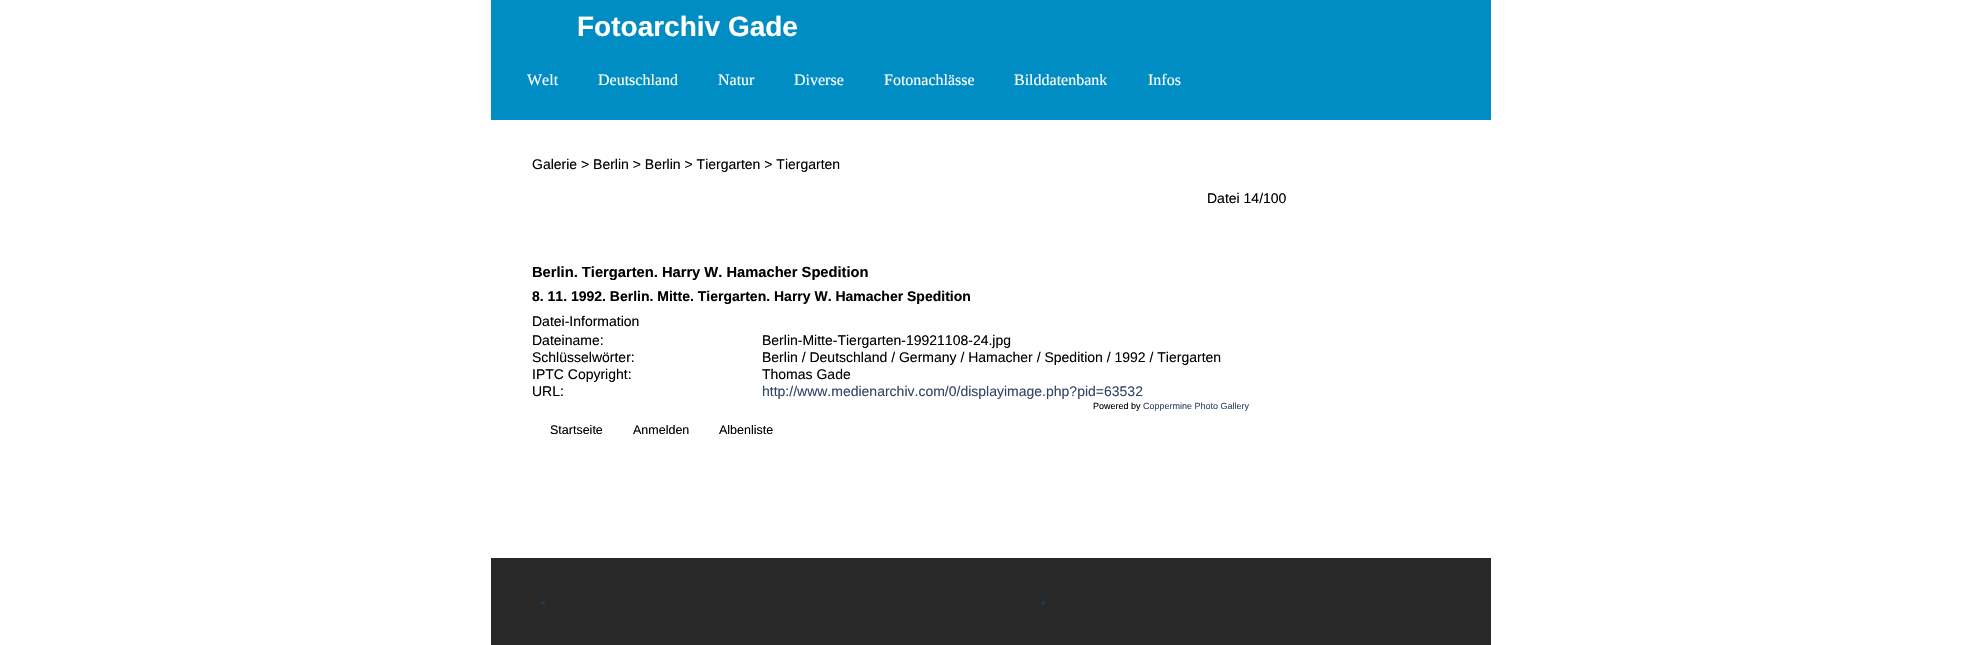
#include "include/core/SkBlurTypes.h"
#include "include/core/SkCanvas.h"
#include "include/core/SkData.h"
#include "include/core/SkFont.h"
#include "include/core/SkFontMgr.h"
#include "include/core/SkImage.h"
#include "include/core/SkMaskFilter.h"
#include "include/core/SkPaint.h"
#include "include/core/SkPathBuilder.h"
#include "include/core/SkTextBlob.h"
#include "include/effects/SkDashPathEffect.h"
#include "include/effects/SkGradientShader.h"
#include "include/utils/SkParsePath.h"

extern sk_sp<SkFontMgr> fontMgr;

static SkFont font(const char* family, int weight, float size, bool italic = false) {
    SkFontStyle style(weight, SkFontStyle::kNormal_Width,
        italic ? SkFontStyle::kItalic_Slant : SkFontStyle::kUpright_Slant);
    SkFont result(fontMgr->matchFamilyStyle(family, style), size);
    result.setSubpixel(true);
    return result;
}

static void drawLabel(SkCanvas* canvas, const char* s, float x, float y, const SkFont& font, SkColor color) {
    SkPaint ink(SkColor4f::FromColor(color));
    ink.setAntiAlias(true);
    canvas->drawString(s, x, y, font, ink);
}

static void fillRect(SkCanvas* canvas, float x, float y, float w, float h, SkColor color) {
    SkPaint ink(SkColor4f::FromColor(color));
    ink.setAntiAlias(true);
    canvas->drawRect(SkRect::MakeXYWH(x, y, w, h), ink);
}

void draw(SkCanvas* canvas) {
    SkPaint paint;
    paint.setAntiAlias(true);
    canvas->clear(0xFFFFFFFF);
    fillRect(canvas, 491, 0, 1000, 120, 0xFF008DC4);
    SkFont font1 = font("Liberation Sans", 700, 28);
    drawLabel(canvas, "Fotoarchiv Gade", 577, 36, font1, 0xFFFFFFFF);
    SkFont font2 = font("Liberation Serif", 400, 16);
    drawLabel(canvas, "Welt", 527, 85, font2, 0xFFFFFFFF);
    drawLabel(canvas, "Deutschland", 598, 85, font2, 0xFFFFFFFF);
    drawLabel(canvas, "Natur", 718, 85, font2, 0xFFFFFFFF);
    drawLabel(canvas, "Diverse", 794, 85, font2, 0xFFFFFFFF);
    drawLabel(canvas, "Fotonachlässe", 884, 85, font2, 0xFFFFFFFF);
    drawLabel(canvas, "Bilddatenbank", 1014, 85, font2, 0xFFFFFFFF);
    drawLabel(canvas, "Infos", 1148, 85, font2, 0xFFFFFFFF);
    SkFont font3 = font("Liberation Sans", 400, 14);
    drawLabel(canvas, "Galerie > Berlin > Berlin > Tiergarten > Tiergarten", 532, 169, font3, 0xFF000000);
    drawLabel(canvas, "Datei 14/100", 1207, 203, font3, 0xFF000000);
    SkFont font4 = font("Liberation Sans", 700, 14.7f);
    drawLabel(canvas, "Berlin. Tiergarten. Harry W. Hamacher Spedition", 532, 277, font4, 0xFF000000);
    SkFont font5 = font("Liberation Sans", 700, 14);
    drawLabel(canvas, "8. 11. 1992. Berlin. Mitte. Tiergarten. Harry W. Hamacher Spedition", 532, 301, font5, 0xFF000000);
    drawLabel(canvas, "Datei-Information", 532, 326, font3, 0xFF000000);
    drawLabel(canvas, "Dateiname:", 532, 345, font3, 0xFF000000);
    drawLabel(canvas, "Berlin-Mitte-Tiergarten-19921108-24.jpg", 762, 345, font3, 0xFF000000);
    drawLabel(canvas, "Schlüsselwörter:", 532, 362, font3, 0xFF000000);
    drawLabel(canvas, "Berlin / Deutschland / Germany / Hamacher / Spedition / 1992 / Tiergarten", 762, 362, font3, 0xFF000000);
    drawLabel(canvas, "IPTC Copyright:", 532, 379, font3, 0xFF000000);
    drawLabel(canvas, "Thomas Gade", 762, 379, font3, 0xFF000000);
    drawLabel(canvas, "URL:", 532, 396, font3, 0xFF000000);
    drawLabel(canvas, "http://www.medienarchiv.com/0/displayimage.php?pid=63532", 762, 396, font3, 0xFF334466);
    SkFont font6 = font("Liberation Sans", 400, 9);
    drawLabel(canvas, "Powered by", 1093, 409, font6, 0xFF000000);
    drawLabel(canvas, "Coppermine Photo Gallery", 1143, 409, font6, 0xFF334466);
    SkFont font7 = font("Liberation Sans", 400, 12.5f);
    drawLabel(canvas, "Startseite", 550, 434, font7, 0xFF000000);
    drawLabel(canvas, "Anmelden", 633, 434, font7, 0xFF000000);
    drawLabel(canvas, "Albenliste", 719, 434, font7, 0xFF000000);
    fillRect(canvas, 491, 558, 1000, 87, 0xFF292929);
    paint.setColor(0xFF183B53);
    canvas->drawCircle(543, 603, 2, paint);
    canvas->drawCircle(1043, 603, 2, paint);
}
